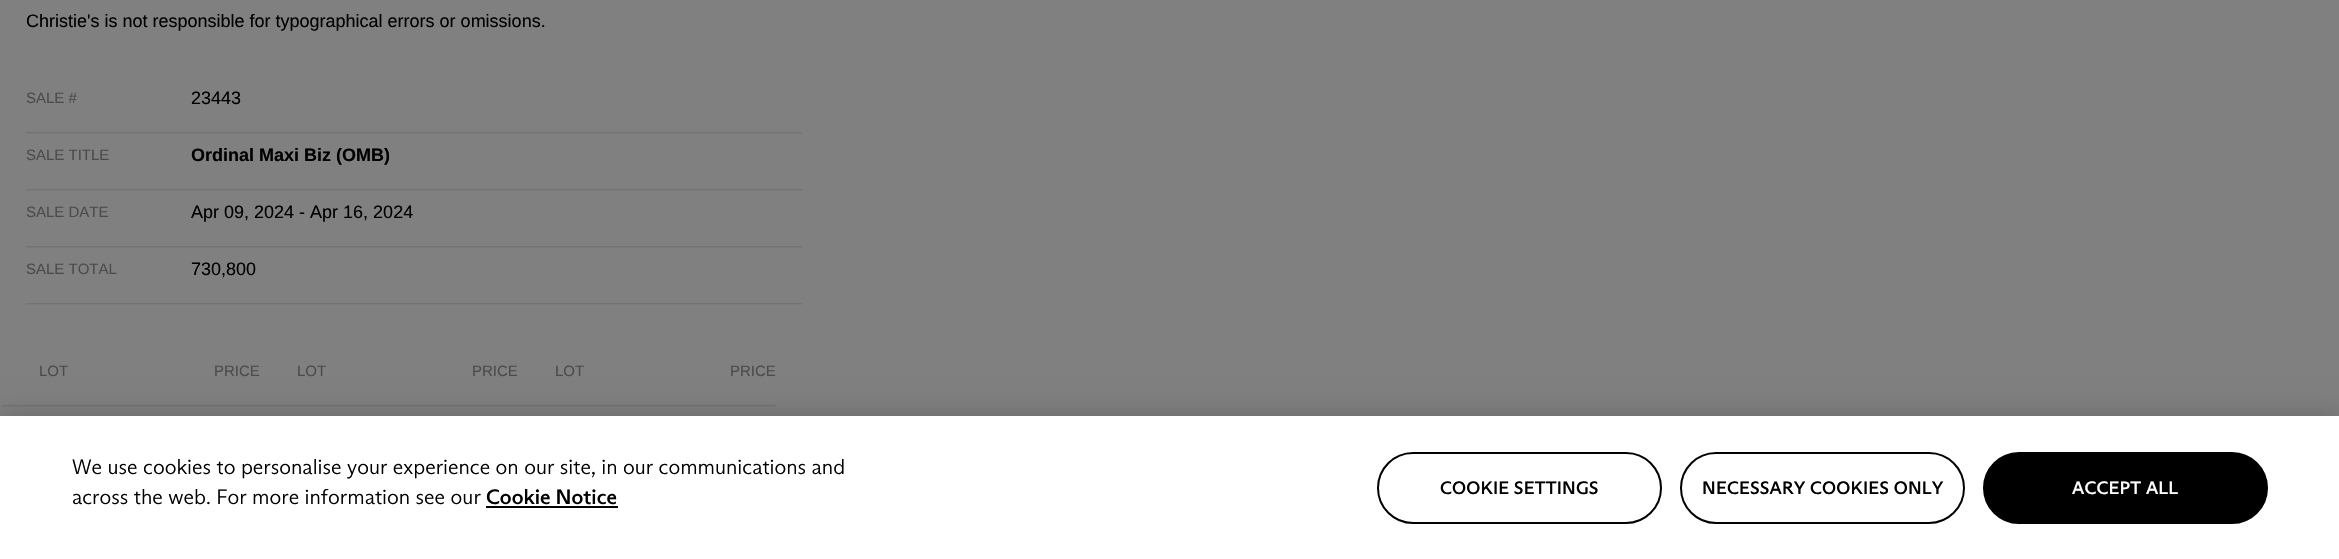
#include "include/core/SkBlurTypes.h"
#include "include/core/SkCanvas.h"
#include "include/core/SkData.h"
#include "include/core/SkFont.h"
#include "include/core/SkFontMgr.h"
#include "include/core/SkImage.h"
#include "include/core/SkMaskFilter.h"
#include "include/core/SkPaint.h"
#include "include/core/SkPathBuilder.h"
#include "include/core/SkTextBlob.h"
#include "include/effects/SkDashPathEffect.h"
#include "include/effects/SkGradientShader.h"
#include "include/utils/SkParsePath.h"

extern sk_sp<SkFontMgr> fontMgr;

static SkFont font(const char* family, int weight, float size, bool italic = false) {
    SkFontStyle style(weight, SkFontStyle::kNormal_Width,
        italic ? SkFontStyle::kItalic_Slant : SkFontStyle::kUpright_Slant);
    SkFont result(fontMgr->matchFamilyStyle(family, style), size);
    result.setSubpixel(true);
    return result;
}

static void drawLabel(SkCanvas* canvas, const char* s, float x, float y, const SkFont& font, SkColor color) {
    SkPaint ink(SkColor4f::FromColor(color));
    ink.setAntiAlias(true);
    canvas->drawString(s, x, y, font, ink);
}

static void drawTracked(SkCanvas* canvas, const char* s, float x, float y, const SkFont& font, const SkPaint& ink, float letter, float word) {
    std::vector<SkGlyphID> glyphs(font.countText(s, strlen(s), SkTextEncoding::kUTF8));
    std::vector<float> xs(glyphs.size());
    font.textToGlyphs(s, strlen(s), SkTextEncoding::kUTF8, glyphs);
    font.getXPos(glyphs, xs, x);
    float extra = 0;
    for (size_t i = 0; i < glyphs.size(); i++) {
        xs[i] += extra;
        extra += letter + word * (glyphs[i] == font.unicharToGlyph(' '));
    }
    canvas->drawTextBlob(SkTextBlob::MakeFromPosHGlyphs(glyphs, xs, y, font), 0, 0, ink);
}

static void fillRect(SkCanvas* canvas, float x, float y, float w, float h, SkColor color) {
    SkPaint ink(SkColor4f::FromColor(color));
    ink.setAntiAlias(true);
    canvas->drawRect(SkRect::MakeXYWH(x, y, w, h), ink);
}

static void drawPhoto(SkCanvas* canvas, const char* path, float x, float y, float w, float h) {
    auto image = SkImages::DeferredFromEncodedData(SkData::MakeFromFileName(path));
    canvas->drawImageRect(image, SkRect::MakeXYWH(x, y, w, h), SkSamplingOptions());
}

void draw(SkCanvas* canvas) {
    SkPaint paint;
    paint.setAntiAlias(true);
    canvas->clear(0xFF808080);
    SkFont font1 = font("Liberation Sans", 400, 18);
    drawLabel(canvas, "Christie's is not responsible for typographical errors or omissions.", 26, 27, font1, 0xFF000000);
    SkFont font2 = font("Liberation Sans", 400, 15);
    drawLabel(canvas, "SALE #", 26, 103, font2, 0xFF4B4B4B);
    drawLabel(canvas, "23443", 191, 104, font1, 0xFF000000);
    drawPhoto(canvas, "assets/img1.png", 25, 132, 778, 2);
    drawLabel(canvas, "SALE TITLE", 26, 160, font2, 0xFF4B4B4B);
    SkFont font3 = font("Liberation Sans", 700, 18);
    drawLabel(canvas, "Ordinal Maxi Biz (OMB)", 191, 161, font3, 0xFF000000);
    drawPhoto(canvas, "assets/img1.png", 25, 189, 778, 2);
    drawLabel(canvas, "SALE DATE", 26, 217, font2, 0xFF4B4B4B);
    drawLabel(canvas, "Apr 09, 2024 - Apr 16, 2024", 191, 218, font1, 0xFF000000);
    drawPhoto(canvas, "assets/img1.png", 25, 246, 778, 2);
    drawLabel(canvas, "SALE TOTAL", 26, 274, font2, 0xFF4B4B4B);
    drawLabel(canvas, "730,800", 191, 275, font1, 0xFF000000);
    drawPhoto(canvas, "assets/img1.png", 25, 303, 778, 2);
    drawLabel(canvas, "LOT", 39, 376, font2, 0xFF4B4B4B);
    drawLabel(canvas, "PRICE", 214, 376, font2, 0xFF4B4B4B);
    drawLabel(canvas, "LOT", 297, 376, font2, 0xFF4B4B4B);
    drawLabel(canvas, "PRICE", 472, 376, font2, 0xFF4B4B4B);
    drawLabel(canvas, "LOT", 555, 376, font2, 0xFF4B4B4B);
    drawLabel(canvas, "PRICE", 730, 376, font2, 0xFF4B4B4B);
    drawPhoto(canvas, "assets/img2.png", 1, 405, 775, 2);
    paint.setColor(0x33000000);
    paint.setMaskFilter(SkMaskFilter::MakeBlur(kNormal_SkBlurStyle, 13.5f));
    canvas->drawRect(SkRect::MakeXYWH(0, 416, 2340, 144), paint);
    paint.setMaskFilter(nullptr);
    fillRect(canvas, 0, 416, 2339, 143, 0xFFFFFFFF);
    SkFont font4 = font("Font", 300, 21);
    drawLabel(canvas, "We use cookies to personalise your experience on our site, in our communications and", 72, 474, font4, 0xFF000000);
    drawLabel(canvas, "across the web. For more information see our", 72, 504, font4, 0xFF000000);
    SkFont font5 = font("Font", 500, 21);
    drawLabel(canvas, "Cookie Notice", 486, 504, font5, 0xFF000000);
    fillRect(canvas, 486, 506, 132, 2, 0xFF000000);
    paint.setStroke(true);
    paint.setStrokeWidth(2);
    paint.setColor(0xFF000000);
    canvas->drawRoundRect(SkRect::MakeXYWH(1378, 453, 283, 70), 35, 35, paint);
    SkFont font6 = font("Font", 500, 18);
    paint.setStroke(false);
    drawTracked(canvas, "COOKIE SETTINGS", 1440, 494, font6, paint, 0.2f, 0);
    paint.setStroke(true);
    canvas->drawRoundRect(SkRect::MakeXYWH(1681, 453, 283, 70), 35, 35, paint);
    paint.setStroke(false);
    drawTracked(canvas, "NECESSARY COOKIES ONLY", 1702, 494, font6, paint, 0.2f, 0);
    canvas->drawRoundRect(SkRect::MakeXYWH(1984, 453, 283, 70), 35, 35, paint);
    paint.setStroke(true);
    canvas->drawRoundRect(SkRect::MakeXYWH(1984, 453, 283, 70), 35, 35, paint);
    paint.setStroke(false);
    paint.setColor(0xFFFFFFFF);
    drawTracked(canvas, "ACCEPT ALL", 2072, 494, font6, paint, 0.2f, 0);
}
